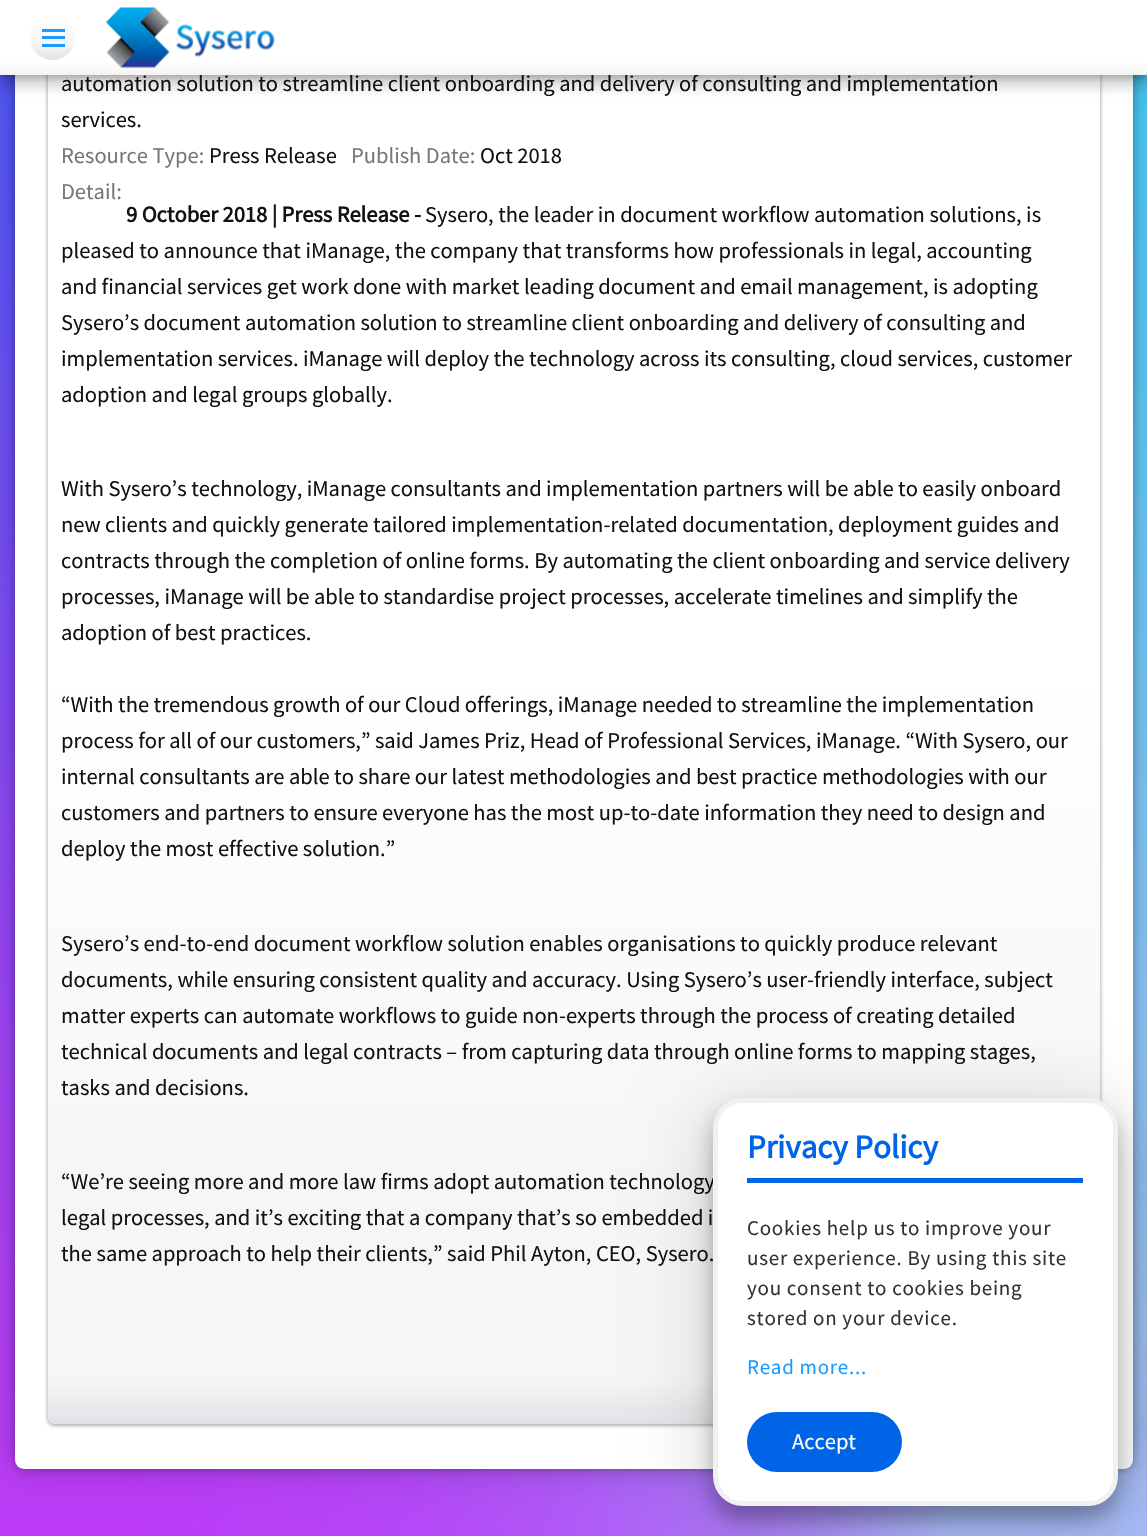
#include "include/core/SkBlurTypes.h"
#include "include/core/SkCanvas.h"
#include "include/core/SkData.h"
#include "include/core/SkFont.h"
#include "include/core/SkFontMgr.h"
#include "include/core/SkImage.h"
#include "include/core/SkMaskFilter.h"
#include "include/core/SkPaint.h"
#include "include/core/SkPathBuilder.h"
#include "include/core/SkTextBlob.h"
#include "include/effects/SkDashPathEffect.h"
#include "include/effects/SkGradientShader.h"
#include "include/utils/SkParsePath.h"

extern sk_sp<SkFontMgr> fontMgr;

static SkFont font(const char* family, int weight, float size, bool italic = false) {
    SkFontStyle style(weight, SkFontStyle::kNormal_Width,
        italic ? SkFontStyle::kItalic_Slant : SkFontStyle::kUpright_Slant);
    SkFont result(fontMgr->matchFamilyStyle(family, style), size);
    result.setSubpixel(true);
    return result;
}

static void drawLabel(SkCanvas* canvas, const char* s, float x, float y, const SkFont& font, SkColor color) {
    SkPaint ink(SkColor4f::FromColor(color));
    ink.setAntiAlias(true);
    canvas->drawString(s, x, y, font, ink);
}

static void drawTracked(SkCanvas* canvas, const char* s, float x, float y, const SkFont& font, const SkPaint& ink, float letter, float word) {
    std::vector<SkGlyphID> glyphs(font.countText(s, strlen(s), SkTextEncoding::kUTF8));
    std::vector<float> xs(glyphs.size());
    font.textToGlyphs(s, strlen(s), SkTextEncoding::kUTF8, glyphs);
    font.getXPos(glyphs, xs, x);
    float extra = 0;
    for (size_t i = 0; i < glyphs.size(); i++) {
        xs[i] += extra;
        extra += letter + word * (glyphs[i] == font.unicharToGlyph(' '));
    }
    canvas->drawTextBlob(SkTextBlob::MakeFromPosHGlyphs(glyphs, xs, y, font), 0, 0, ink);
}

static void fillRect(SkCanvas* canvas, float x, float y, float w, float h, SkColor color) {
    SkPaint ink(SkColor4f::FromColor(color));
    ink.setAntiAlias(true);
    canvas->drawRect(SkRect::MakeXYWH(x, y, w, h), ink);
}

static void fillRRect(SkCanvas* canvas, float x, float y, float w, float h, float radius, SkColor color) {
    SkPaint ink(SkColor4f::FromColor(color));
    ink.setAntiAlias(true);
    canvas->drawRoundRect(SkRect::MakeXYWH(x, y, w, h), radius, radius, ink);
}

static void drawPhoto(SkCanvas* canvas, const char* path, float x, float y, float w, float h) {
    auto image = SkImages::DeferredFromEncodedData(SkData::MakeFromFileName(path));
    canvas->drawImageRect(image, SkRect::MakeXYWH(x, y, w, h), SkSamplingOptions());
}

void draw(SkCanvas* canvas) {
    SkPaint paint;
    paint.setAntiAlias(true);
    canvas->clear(0xFFFFFFFF);
    drawPhoto(canvas, "assets/img1.png", 0, 75, 1147, 1461);
    paint.setColor(0x4D000000);
    paint.setMaskFilter(SkMaskFilter::MakeBlur(kNormal_SkBlurStyle, 4));
    canvas->drawRoundRect(SkRect::MakeXYWH(15, -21, 1118, 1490), 9, 9, paint);
    paint.setMaskFilter(nullptr);
    paint.setColor(0x33000000);
    paint.setMaskFilter(SkMaskFilter::MakeBlur(kNormal_SkBlurStyle, 19));
    canvas->drawRoundRect(SkRect::MakeXYWH(15, -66, 1118, 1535), 9, 9, paint);
    paint.setMaskFilter(nullptr);
    fillRRect(canvas, 15, -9, 1118, 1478, 9, 0xFFFFFFFF);
    paint.setColor(0xE6858585);
    paint.setMaskFilter(SkMaskFilter::MakeBlur(kNormal_SkBlurStyle, 2));
    canvas->drawRoundRect(SkRect::MakeXYWH(48, -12, 1052, 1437), 6, 6, paint);
    paint.setMaskFilter(nullptr);
    {
        const SkColor colors[] = {0xFFFFFFFF, 0xFFF6F6F6, 0xFFF6F6F6, 0xFFE2E3E6};
        const float stops[] = {0.5f, 0.85f, 0.97f, 1};
        const SkPoint ends[] = {{574, -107}, {574, 1424}};
        paint.setShader(SkGradientShader::MakeLinear(ends, colors, stops, 4, SkTileMode::kClamp));
        paint.setAlpha(255);
    }
    canvas->drawRoundRect(SkRect::MakeXYWH(48, -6, 1052, 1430), 6, 6, paint);
    paint.setShader(nullptr);
    paint.setColor(0x1A000000);
    paint.setMaskFilter(SkMaskFilter::MakeBlur(kNormal_SkBlurStyle, 4));
    canvas->drawRect(SkRect::MakeXYWH(0, 15, 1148, 75), paint);
    paint.setMaskFilter(nullptr);
    paint.setColor(0x4D000000);
    paint.setMaskFilter(SkMaskFilter::MakeBlur(kNormal_SkBlurStyle, 4));
    canvas->drawRect(SkRect::MakeXYWH(0, 3, 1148, 75), paint);
    paint.setMaskFilter(nullptr);
    SkFont font1 = font("Source Sans Pro", 400, 22.5f);
    drawLabel(canvas, "automation solution to streamline client onboarding and delivery of consulting and implementation", 61, 91, font1, 0xFF121212);
    {
        const SkColor colors[] = {0xFFFFFFFF, 0xFFF6F6F6, 0xFFE2E3E6};
        const float stops[] = {0.73f, 0.87f, 1};
        const SkPoint ends[] = {{574, 0}, {574, 83}};
        paint.setShader(SkGradientShader::MakeLinear(ends, colors, stops, 3, SkTileMode::kClamp));
        paint.setAlpha(255);
    }
    canvas->drawRect(SkRect::MakeXYWH(0, 0, 1147, 75), paint);
    {
        const SkColor colors[] = {0xFFFFFFFF, 0xFFF6F6F6, 0xFFE2E3E6};
        const float stops[] = {0, 0.62f, 1};
        const SkPoint ends[] = {{53, 15}, {53, 60}};
        paint.setShader(SkGradientShader::MakeLinear(ends, colors, stops, 3, SkTileMode::kClamp));
        paint.setAlpha(255);
    }
    canvas->drawCircle(52.5f, 37.5f, 22.5f, paint);
    fillRect(canvas, 42, 29, 23, 3, 0xFF1B9BFF);
    fillRect(canvas, 42, 36, 23, 3, 0xFF1B9BFF);
    fillRect(canvas, 42, 44, 23, 3, 0xFF1B9BFF);
    drawPhoto(canvas, "assets/img2.png", 106, 7, 169, 61);
    drawLabel(canvas, "services.", 61, 127, font1, 0xFF121212);
    drawLabel(canvas, "Resource Type:", 61, 163, font1, 0xFF777777);
    drawLabel(canvas, "Press Release", 209, 163, font1, 0xFF121212);
    drawLabel(canvas, "Publish Date:", 351, 163, font1, 0xFF777777);
    drawLabel(canvas, "Oct 2018", 480, 163, font1, 0xFF121212);
    drawLabel(canvas, "Detail:", 61, 199, font1, 0xFF777777);
    SkFont font2 = font("Source Sans Pro", 700, 22.5f);
    drawLabel(canvas, "9 October 2018 | Press Release -", 126, 222, font2, 0xFF121212);
    drawLabel(canvas, "Sysero, the leader in document workflow automation solutions, is", 425, 222, font1, 0xFF121212);
    drawLabel(canvas, "pleased to announce that iManage, the company that transforms how professionals in legal, accounting", 61, 258, font1, 0xFF121212);
    drawLabel(canvas, "and financial services get work done with market leading document and email management, is adopting", 61, 294, font1, 0xFF121212);
    drawLabel(canvas, "Sysero’s document automation solution to streamline client onboarding and delivery of consulting and", 61, 330, font1, 0xFF121212);
    drawLabel(canvas, "implementation services. iManage will deploy the technology across its consulting, cloud services, customer", 61, 366, font1, 0xFF121212);
    drawLabel(canvas, "adoption and legal groups globally.", 61, 402, font1, 0xFF121212);
    drawLabel(canvas, "With Sysero’s technology, iManage consultants and implementation partners will be able to easily onboard", 61, 496, font1, 0xFF121212);
    drawLabel(canvas, "new clients and quickly generate tailored implementation-related documentation, deployment guides and", 61, 532, font1, 0xFF121212);
    drawLabel(canvas, "contracts through the completion of online forms. By automating the client onboarding and service delivery", 61, 568, font1, 0xFF121212);
    drawLabel(canvas, "processes, iManage will be able to standardise project processes, accelerate timelines and simplify the", 61, 604, font1, 0xFF121212);
    drawLabel(canvas, "adoption of best practices.", 61, 640, font1, 0xFF121212);
    drawLabel(canvas, "“With the tremendous growth of our Cloud offerings, iManage needed to streamline the implementation", 61, 712, font1, 0xFF121212);
    drawLabel(canvas, "process for all of our customers,” said James Priz, Head of Professional Services, iManage. “With Sysero, our", 61, 748, font1, 0xFF121212);
    drawLabel(canvas, "internal consultants are able to share our latest methodologies and best practice methodologies with our", 61, 784, font1, 0xFF121212);
    drawLabel(canvas, "customers and partners to ensure everyone has the most up-to-date information they need to design and", 61, 820, font1, 0xFF121212);
    drawLabel(canvas, "deploy the most effective solution.”", 61, 856, font1, 0xFF121212);
    drawLabel(canvas, "Sysero’s end-to-end document workflow solution enables organisations to quickly produce relevant", 61, 951, font1, 0xFF121212);
    drawLabel(canvas, "documents, while ensuring consistent quality and accuracy. Using Sysero’s user-friendly interface, subject", 61, 987, font1, 0xFF121212);
    drawLabel(canvas, "matter experts can automate workflows to guide non-experts through the process of creating detailed", 61, 1023, font1, 0xFF121212);
    drawLabel(canvas, "technical documents and legal contracts – from capturing data through online forms to mapping stages,", 61, 1059, font1, 0xFF121212);
    drawLabel(canvas, "tasks and decisions.", 61, 1095, font1, 0xFF121212);
    drawLabel(canvas, "“We’re seeing more and more law firms adopt automation technology", 61, 1189, font1, 0xFF121212);
    drawLabel(canvas, "legal processes, and it’s exciting that a company that’s so embedded i", 61, 1225, font1, 0xFF121212);
    drawLabel(canvas, "the same approach to help their clients,” said Phil Ayton, CEO, Sysero.", 61, 1261, font1, 0xFF121212);
    paint.setShader(nullptr);
    paint.setColor(0x1F000000);
    paint.setMaskFilter(SkMaskFilter::MakeBlur(kNormal_SkBlurStyle, 34.5f));
    canvas->drawRoundRect(SkRect::MakeXYWH(701, 1100, 429, 432), 42, 42, paint);
    paint.setMaskFilter(nullptr);
    paint.setColor(0x24000000);
    paint.setMaskFilter(SkMaskFilter::MakeBlur(kNormal_SkBlurStyle, 7.5f));
    canvas->drawRoundRect(SkRect::MakeXYWH(708, 1106, 414, 417), 35, 35, paint);
    paint.setMaskFilter(nullptr);
    paint.setColor(0x33000000);
    paint.setMaskFilter(SkMaskFilter::MakeBlur(kNormal_SkBlurStyle, 11));
    canvas->drawRoundRect(SkRect::MakeXYWH(723, 1125, 384, 387), 20, 20, paint);
    paint.setMaskFilter(nullptr);
    paint.setColor(0xFFFFFFFF);
    canvas->drawRoundRect(SkRect::MakeXYWH(715.5f, 1100.5f, 400, 403), 27.5f, 27.5f, paint);
    paint.setStroke(true);
    paint.setStrokeWidth(5);
    paint.setColor(0xFFF1F1F1);
    canvas->drawRoundRect(SkRect::MakeXYWH(715.5f, 1100.5f, 400, 403), 27.5f, 27.5f, paint);
    fillRect(canvas, 747, 1178, 336, 5, 0xFF0064E7);
    SkFont font3 = font("Source Sans Pro", 700, 33);
    drawLabel(canvas, "Privacy Policy", 747, 1158, font3, 0xFF0064E7);
    SkFont font4 = font("Source Sans Pro", 400, 21);
    paint.setStroke(false);
    paint.setColor(0xFF333333);
    drawTracked(canvas, "Cookies help us to improve your", 747, 1235, font4, paint, 0.75f, 0);
    drawTracked(canvas, "user experience. By using this site", 747, 1265, font4, paint, 0.75f, 0);
    drawTracked(canvas, "you consent to cookies being", 747, 1295, font4, paint, 0.75f, 0);
    drawTracked(canvas, "stored on your device.", 747, 1325, font4, paint, 0.75f, 0);
    paint.setColor(0xFF1B9BFF);
    drawTracked(canvas, "Read more...", 747, 1374, font4, paint, 0.75f, 0);
    fillRRect(canvas, 747, 1412, 155, 60, 30, 0xFF0064E7);
    drawLabel(canvas, "Accept", 792, 1449, font1, 0xFFFFFFFF);
}
